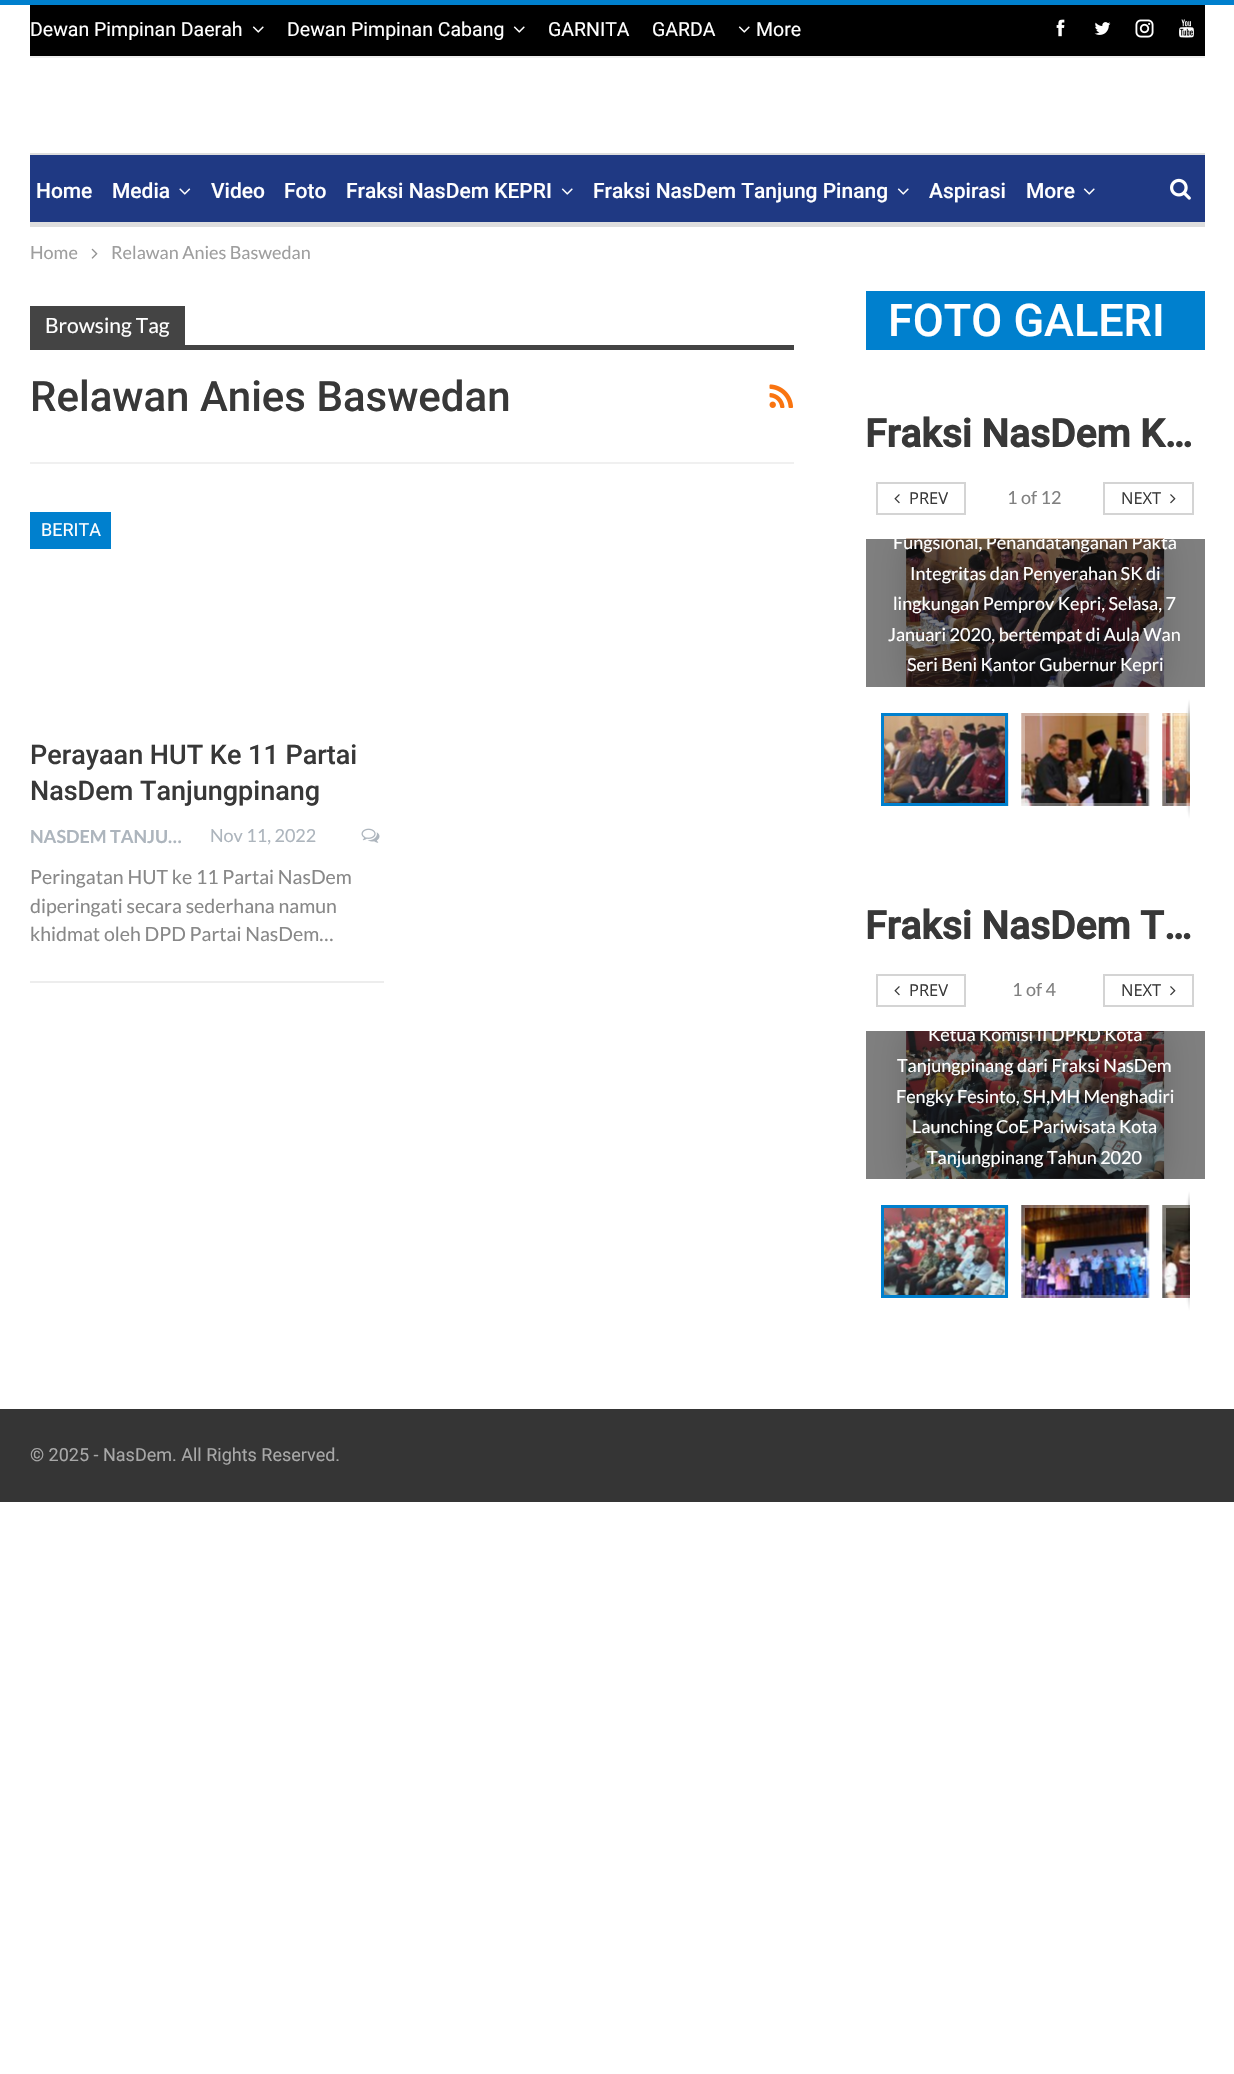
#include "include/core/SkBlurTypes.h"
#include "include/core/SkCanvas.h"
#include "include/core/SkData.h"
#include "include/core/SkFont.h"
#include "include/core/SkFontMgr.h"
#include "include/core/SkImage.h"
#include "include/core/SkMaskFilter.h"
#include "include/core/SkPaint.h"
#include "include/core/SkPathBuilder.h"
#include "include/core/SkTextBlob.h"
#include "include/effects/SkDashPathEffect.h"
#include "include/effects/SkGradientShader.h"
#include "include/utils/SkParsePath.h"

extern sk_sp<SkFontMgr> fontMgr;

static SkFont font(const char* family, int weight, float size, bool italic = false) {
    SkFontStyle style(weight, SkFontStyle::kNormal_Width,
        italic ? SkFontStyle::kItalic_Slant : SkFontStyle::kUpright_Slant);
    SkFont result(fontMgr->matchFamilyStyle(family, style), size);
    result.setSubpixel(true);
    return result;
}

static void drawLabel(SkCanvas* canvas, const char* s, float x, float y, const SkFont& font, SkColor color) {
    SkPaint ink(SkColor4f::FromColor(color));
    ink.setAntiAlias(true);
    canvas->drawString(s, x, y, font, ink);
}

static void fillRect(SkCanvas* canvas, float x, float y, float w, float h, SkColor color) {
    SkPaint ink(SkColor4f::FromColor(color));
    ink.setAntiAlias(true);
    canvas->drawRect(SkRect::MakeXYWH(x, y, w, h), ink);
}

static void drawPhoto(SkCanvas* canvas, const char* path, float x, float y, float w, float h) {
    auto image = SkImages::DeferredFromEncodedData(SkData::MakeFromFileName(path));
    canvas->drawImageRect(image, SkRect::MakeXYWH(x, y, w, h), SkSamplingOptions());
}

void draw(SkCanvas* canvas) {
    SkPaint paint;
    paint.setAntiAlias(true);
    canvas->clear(0xFFFFFFFF);
    fillRect(canvas, 866, 1031, 339, 148, 0xFF7E7E7E);
    fillRect(canvas, 866, 539, 339, 148, 0xFF7E7E7E);
    fillRect(canvas, 0, 0, 1234, 5, 0xFF0080CE);
    fillRect(canvas, 30, 5, 1175, 51, 0xFF000000);
    fillRect(canvas, 30, 56, 1175, 2, 0xFFEFEFEF);
    SkFont font1 = font("Roboto", 400, 19.5f);
    drawLabel(canvas, "Dewan Pimpinan Daerah", 30, 36, font1, 0xFFFFFFFF);
    drawPhoto(canvas, "assets/img1.png", 252, 26, 12, 7);
    drawLabel(canvas, "Dewan Pimpinan Cabang", 287, 36, font1, 0xFFFFFFFF);
    drawPhoto(canvas, "assets/img1.png", 513, 26, 12, 7);
    drawLabel(canvas, "GARNITA", 548, 36, font1, 0xFFFFFFFF);
    drawLabel(canvas, "GARDA", 652, 36, font1, 0xFFFFFFFF);
    drawPhoto(canvas, "assets/img1.png", 738, 26, 12, 7);
    drawLabel(canvas, "More", 756, 36, font1, 0xFFFFFFFF);
    drawPhoto(canvas, "assets/img2.png", 1056, 19, 9, 18);
    drawPhoto(canvas, "assets/img3.png", 1094, 22, 17, 13);
    drawPhoto(canvas, "assets/img4.png", 1135, 19, 19, 19);
    drawPhoto(canvas, "assets/img5.png", 1179, 19, 15, 19);
    fillRect(canvas, 30, 155, 1175, 67, 0xFF1F3983);
    fillRect(canvas, 30, 153, 1175, 2, 0xFFDEDEDE);
    fillRect(canvas, 30, 222, 1175, 5, 0xFFDEDEDE);
    SkFont font2 = font("Roboto", 500, 21);
    drawLabel(canvas, "Home", 36, 198, font2, 0xFFFFFFFF);
    drawLabel(canvas, "Media", 112, 198, font2, 0xFFFFFFFF);
    drawPhoto(canvas, "assets/img6.png", 179, 188, 12, 7);
    drawLabel(canvas, "Video", 211, 198, font2, 0xFFFFFFFF);
    drawLabel(canvas, "Foto", 284, 198, font2, 0xFFFFFFFF);
    drawLabel(canvas, "Fraksi NasDem KEPRI", 346, 198, font2, 0xFFFFFFFF);
    drawPhoto(canvas, "assets/img7.png", 561, 188, 12, 7);
    drawLabel(canvas, "Fraksi NasDem Tanjung Pinang", 593, 198, font2, 0xFFFFFFFF);
    drawPhoto(canvas, "assets/img7.png", 897, 188, 12, 7);
    drawLabel(canvas, "Aspirasi", 929, 198, font2, 0xFFFFFFFF);
    drawLabel(canvas, "More", 1026, 198, font2, 0xFFFFFFFF);
    drawPhoto(canvas, "assets/img7.png", 1083, 188, 12, 7);
    drawPhoto(canvas, "assets/img8.png", 1170, 178, 21, 22);
    SkFont font3 = font("Lato", 400, 18);
    drawLabel(canvas, "Home", 30, 259, font3, 0xFF9E9E9E);
    drawPhoto(canvas, "assets/img9.png", 91, 248, 7, 11);
    drawLabel(canvas, "Relawan Anies Baswedan", 111, 259, font3, 0xFF9E9E9E);
    fillRect(canvas, 30, 462, 764, 2, 0xFFF0F0F0);
    fillRect(canvas, 30, 306, 155, 39, 0xFF444444);
    SkFont font4 = font("Lato", 400, 21);
    drawLabel(canvas, "Browsing Tag", 45, 333, font4, 0xFFFFFFFF);
    fillRect(canvas, 30, 345, 764, 5, 0xFF444444);
    SkFont font5 = font("Roboto", 500, 42);
    drawLabel(canvas, "Relawan Anies Baswedan", 30, 411, font5, 0xFF383838);
    drawPhoto(canvas, "assets/img10.png", 769, 384, 25, 24);
    fillRect(canvas, 30, 512, 81, 37, 0xFF0080CE);
    SkFont font6 = font("Roboto", 400, 18);
    drawLabel(canvas, "BERITA", 41, 536, font6, 0xFFFFFFFF);
    SkFont font7 = font("Roboto", 500, 27);
    drawLabel(canvas, "Perayaan HUT Ke 11 Partai", 30, 764, font7, 0xFF383838);
    drawLabel(canvas, "NasDem Tanjungpinang", 30, 800, font7, 0xFF383838);
    SkFont font8 = font("Lato", 700, 18);
    drawLabel(canvas, "NASDEM TANJU…", 30, 843, font8, 0xFFADB5BD);
    drawLabel(canvas, "Nov 11, 2022", 210, 842, font3, 0xFFADB5BD);
    drawPhoto(canvas, "assets/img11.png", 361, 828, 19, 15);
    fillRect(canvas, 30, 981, 354, 2, 0xFFEDEDED);
    SkFont font9 = font("Lato", 400, 19.5f);
    drawLabel(canvas, "Peringatan HUT ke 11 Partai NasDem", 30, 884, font9, 0xFF888888);
    drawLabel(canvas, "diperingati secara sederhana namun", 30, 913, font9, 0xFF888888);
    drawLabel(canvas, "khidmat oleh DPD Partai NasDem…", 30, 941, font9, 0xFF888888);
    fillRect(canvas, 866, 291, 339, 59, 0xFF0080CE);
    SkFont font10 = font("Roboto", 500, 45);
    drawLabel(canvas, "FOTO GALERI", 888, 336, font10, 0xFFFFFFFF);
    SkFont font11 = font("Roboto", 700, 39);
    drawLabel(canvas, "Fraksi NasDem K…", 865, 447, font11, 0xFF383838);
    paint.setStroke(true);
    paint.setStrokeWidth(2);
    paint.setColor(0xFFD4D4D4);
    canvas->drawRect(SkRect::MakeXYWH(877, 483, 88, 31), paint);
    drawPhoto(canvas, "assets/img12.png", 894, 494, 6, 10);
    SkFont font12 = font("Open Sans", 400, 16.5f);
    drawLabel(canvas, "PREV", 909, 504, font12, 0xFF383838);
    drawLabel(canvas, "1 of 12", 1007, 504, font3, 0xFF808080);
    canvas->drawRect(SkRect::MakeXYWH(1104, 483, 89, 31), paint);
    drawLabel(canvas, "NEXT", 1121, 504, font12, 0xFF383838);
    drawPhoto(canvas, "assets/img13.png", 1170, 494, 6, 10);
    canvas->save();
    canvas->clipRect(SkRect::MakeXYWH(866, 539, 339, 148));
    paint.setStroke(false);
    paint.setColor(0x2B0B0B0B);
    paint.setMaskFilter(SkMaskFilter::MakeBlur(kNormal_SkBlurStyle, 16.5f));
    canvas->drawRect(SkRect::MakeXYWH(906, 539, 258, 148), paint);
    paint.setMaskFilter(nullptr);
    canvas->restore();
    drawPhoto(canvas, "assets/img14.png", 906, 538, 259, 149);
    canvas->save();
    canvas->clipRect(SkRect::MakeXYWH(866, 539, 339, 148));
    drawLabel(canvas, "Fungsional, Penandatanganan Pakta", 893, 549, font3, 0xFFFFFFFF);
    canvas->restore();
    drawLabel(canvas, "Integritas dan Penyerahan SK di", 910, 580, font3, 0xFFFFFFFF);
    drawLabel(canvas, "lingkungan Pemprov Kepri, Selasa, 7", 893, 610, font3, 0xFFFFFFFF);
    drawLabel(canvas, "Januari 2020, bertempat di Aula Wan", 888, 641, font3, 0xFFFFFFFF);
    drawLabel(canvas, "Seri Beni Kantor Gubernur Kepri", 907, 671, font3, 0xFFFFFFFF);
    drawPhoto(canvas, "assets/img17.png", 1162, 713, 28, 93);
    canvas->save();
    canvas->clipRect(SkRect::MakeXYWH(1163, 713, 27, 93));
    paint.setStroke(true);
    paint.setStrokeWidth(3);
    paint.setColor(0x54FFFFFF);
    canvas->drawRect(SkRect::MakeXYWH(1164.5f, 714.5f, 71, 90), paint);
    canvas->restore();
    paint.setStroke(false);
    {
        const SkColor colors[] = {0x47000000, 0x00000000};
        const float stops[] = {0, 1};
        SkMatrix m = SkMatrix::Translate(1190, 759).preScale(7.5f, 60);
        paint.setShader(SkGradientShader::MakeRadial({0, 0}, 1, colors, stops, 2, SkTileMode::kClamp, 0, &m));
        paint.setAlpha(255);
    }
    canvas->drawRect(SkRect::MakeXYWH(1183, 699, 7, 120), paint);
    {
        const SkColor colors[] = {0x00000000, 0x3D000000, 0x1F000000, 0x00000000};
        const float stops[] = {0, 0.25f, 0.75f, 1};
        const SkPoint ends[] = {{1189, 699}, {1189, 819}};
        paint.setShader(SkGradientShader::MakeLinear(ends, colors, stops, 4, SkTileMode::kClamp));
        paint.setAlpha(255);
    }
    canvas->drawRect(SkRect::MakeXYWH(1188, 699, 2, 120), paint);
    drawPhoto(canvas, "assets/img15.png", 884, 713, 125, 93);
    paint.setStroke(true);
    paint.setShader(nullptr);
    paint.setColor(0xFF0080CE);
    canvas->drawRect(SkRect::MakeXYWH(882.5f, 714.5f, 124, 90), paint);
    fillRect(canvas, 1148, 713, 1, 93, 0xFFE5E5E5);
    drawPhoto(canvas, "assets/img16.png", 1021, 713, 129, 93);
    paint.setColor(0x54FFFFFF);
    canvas->drawRect(SkRect::MakeXYWH(1023.5f, 714.5f, 124, 90), paint);
    drawLabel(canvas, "Fraksi NasDem T…", 865, 939, font11, 0xFF383838);
    paint.setStrokeWidth(2);
    paint.setColor(0xFFD4D4D4);
    canvas->drawRect(SkRect::MakeXYWH(877, 975, 88, 31), paint);
    drawPhoto(canvas, "assets/img12.png", 894, 986, 6, 10);
    drawLabel(canvas, "PREV", 909, 996, font12, 0xFF383838);
    drawLabel(canvas, "1 of 4", 1012, 996, font3, 0xFF808080);
    canvas->drawRect(SkRect::MakeXYWH(1104, 975, 89, 31), paint);
    drawLabel(canvas, "NEXT", 1121, 996, font12, 0xFF383838);
    drawPhoto(canvas, "assets/img13.png", 1170, 986, 6, 10);
    canvas->save();
    canvas->clipRect(SkRect::MakeXYWH(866, 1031, 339, 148));
    paint.setStroke(false);
    paint.setColor(0x2B0B0B0B);
    paint.setMaskFilter(SkMaskFilter::MakeBlur(kNormal_SkBlurStyle, 16.5f));
    canvas->drawRect(SkRect::MakeXYWH(906, 1031, 258, 148), paint);
    paint.setMaskFilter(nullptr);
    canvas->restore();
    drawPhoto(canvas, "assets/img18.png", 906, 1031, 259, 148);
    canvas->save();
    canvas->clipRect(SkRect::MakeXYWH(866, 1031, 339, 148));
    drawLabel(canvas, "Ketua Komisi II DPRD Kota", 928, 1041, font3, 0xFFFFFFFF);
    canvas->restore();
    drawLabel(canvas, "Tanjungpinang dari Fraksi NasDem", 897, 1072, font3, 0xFFFFFFFF);
    drawLabel(canvas, "Fengky Fesinto, SH,MH Menghadiri", 896, 1103, font3, 0xFFFFFFFF);
    drawLabel(canvas, "Launching CoE Pariwisata Kota", 912, 1133, font3, 0xFFFFFFFF);
    drawLabel(canvas, "Tanjungpinang Tahun 2020", 927, 1164, font3, 0xFFFFFFFF);
    drawPhoto(canvas, "assets/img21.png", 1162, 1205, 28, 93);
    canvas->save();
    canvas->clipRect(SkRect::MakeXYWH(1163, 1205, 27, 93));
    paint.setStroke(true);
    paint.setStrokeWidth(3);
    paint.setColor(0x54FFFFFF);
    canvas->drawRect(SkRect::MakeXYWH(1164.5f, 1206.5f, 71, 90), paint);
    canvas->restore();
    paint.setStroke(false);
    {
        const SkColor colors[] = {0x47000000, 0x00000000};
        const float stops[] = {0, 1};
        SkMatrix m = SkMatrix::Translate(1190, 1251).preScale(7.5f, 60);
        paint.setShader(SkGradientShader::MakeRadial({0, 0}, 1, colors, stops, 2, SkTileMode::kClamp, 0, &m));
        paint.setAlpha(255);
    }
    canvas->drawRect(SkRect::MakeXYWH(1183, 1191, 7, 120), paint);
    {
        const SkColor colors[] = {0x00000000, 0x3D000000, 0x1F000000, 0x00000000};
        const float stops[] = {0, 0.25f, 0.75f, 1};
        const SkPoint ends[] = {{1189, 1191}, {1189, 1311}};
        paint.setShader(SkGradientShader::MakeLinear(ends, colors, stops, 4, SkTileMode::kClamp));
        paint.setAlpha(255);
    }
    canvas->drawRect(SkRect::MakeXYWH(1188, 1191, 2, 120), paint);
    drawPhoto(canvas, "assets/img19.png", 884, 1205, 125, 93);
    paint.setStroke(true);
    paint.setShader(nullptr);
    paint.setColor(0xFF0080CE);
    canvas->drawRect(SkRect::MakeXYWH(882.5f, 1206.5f, 124, 90), paint);
    fillRect(canvas, 1148, 1205, 1, 93, 0xFFE5E5E5);
    drawPhoto(canvas, "assets/img20.png", 1021, 1205, 129, 93);
    paint.setColor(0x54FFFFFF);
    canvas->drawRect(SkRect::MakeXYWH(1023.5f, 1206.5f, 124, 90), paint);
    fillRect(canvas, 0, 1409, 1234, 93, 0xFF353535);
    drawLabel(canvas, "© 2025 - NasDem. All Rights Reserved.", 30, 1461, font6, 0xFFA8A8A8);
}
